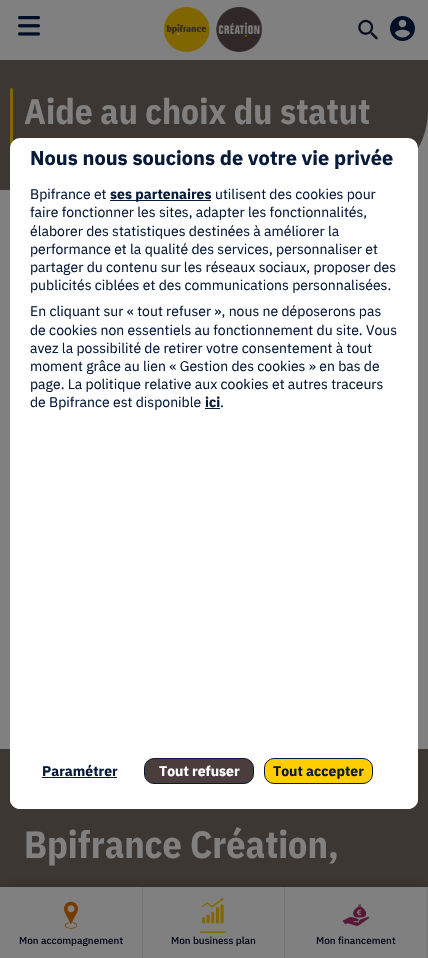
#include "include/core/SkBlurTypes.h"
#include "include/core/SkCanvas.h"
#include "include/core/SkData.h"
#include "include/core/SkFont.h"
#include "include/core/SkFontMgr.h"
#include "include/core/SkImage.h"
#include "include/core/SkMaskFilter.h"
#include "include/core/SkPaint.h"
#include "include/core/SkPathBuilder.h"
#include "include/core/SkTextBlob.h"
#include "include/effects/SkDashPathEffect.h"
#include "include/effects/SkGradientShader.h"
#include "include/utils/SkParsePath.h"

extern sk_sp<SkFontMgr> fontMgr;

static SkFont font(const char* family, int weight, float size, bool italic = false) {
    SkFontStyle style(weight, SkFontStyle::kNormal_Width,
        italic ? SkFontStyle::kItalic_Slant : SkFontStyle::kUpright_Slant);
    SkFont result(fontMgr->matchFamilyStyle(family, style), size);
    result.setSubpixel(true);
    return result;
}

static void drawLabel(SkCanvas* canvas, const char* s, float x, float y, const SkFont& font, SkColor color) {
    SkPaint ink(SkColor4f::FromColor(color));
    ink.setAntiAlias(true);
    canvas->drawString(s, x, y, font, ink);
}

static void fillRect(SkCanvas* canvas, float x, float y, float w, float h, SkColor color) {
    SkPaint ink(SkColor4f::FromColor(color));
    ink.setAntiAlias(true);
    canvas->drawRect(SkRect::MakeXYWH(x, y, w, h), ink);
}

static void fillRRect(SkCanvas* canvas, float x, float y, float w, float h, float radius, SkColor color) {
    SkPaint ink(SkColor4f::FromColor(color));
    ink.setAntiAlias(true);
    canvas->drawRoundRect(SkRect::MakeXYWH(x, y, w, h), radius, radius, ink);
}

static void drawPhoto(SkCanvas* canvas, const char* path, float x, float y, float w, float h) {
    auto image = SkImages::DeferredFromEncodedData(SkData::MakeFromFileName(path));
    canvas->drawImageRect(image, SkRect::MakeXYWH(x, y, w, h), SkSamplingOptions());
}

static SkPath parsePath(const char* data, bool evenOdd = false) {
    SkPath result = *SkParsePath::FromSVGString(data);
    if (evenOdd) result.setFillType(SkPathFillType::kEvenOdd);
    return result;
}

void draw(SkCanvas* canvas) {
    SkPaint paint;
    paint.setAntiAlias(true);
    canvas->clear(0xFF808080);
    drawPhoto(canvas, "assets/img1.png", 18, 16, 22, 20);
    drawPhoto(canvas, "assets/img2.png", 164, 7, 100, 45);
    drawPhoto(canvas, "assets/img3.png", 358, 19, 20, 21);
    drawPhoto(canvas, "assets/img4.png", 390, 16, 25, 25);
    paint.setColor(0xFF3C3732);
    canvas->drawPath(parsePath("M0 60H428V110C428 154 392 190 348 190H0Z"), paint);
    fillRRect(canvas, 10, 88, 3, 81, 1.5f, 0xFF806700);
    SkFont font1 = font("IBM Plex Sans Condensed", 700, 35.5f);
    drawLabel(canvas, "Aide au choix du statut", 24, 124, font1, 0xFF808080);
    fillRect(canvas, 0, 749, 428, 138, 0xFF3C3732);
    SkFont font2 = font("IBM Plex Sans Condensed", 700, 38);
    drawLabel(canvas, "Bpifrance Création,", 24, 858, font2, 0xFF808080);
    paint.setColor(0x40000000);
    paint.setMaskFilter(SkMaskFilter::MakeBlur(kNormal_SkBlurStyle, 5));
    canvas->drawRect(SkRect::MakeXYWH(0, 887, 428, 71), paint);
    paint.setMaskFilter(nullptr);
    fillRect(canvas, 0, 887, 427, 71, 0xFF808080);
    fillRect(canvas, 142, 887, 1, 71, 0xFF737373);
    drawPhoto(canvas, "assets/img5.png", 63, 901, 16, 28);
    SkFont font3 = font("IBM Plex Sans", 500, 10);
    drawLabel(canvas, "Mon accompagnement", 19, 944, font3, 0xFF040D1D);
    fillRect(canvas, 284, 887, 1, 71, 0xFF737373);
    drawPhoto(canvas, "assets/img6.png", 199, 897, 28, 36);
    drawLabel(canvas, "Mon business plan", 171, 944, font3, 0xFF040D1D);
    fillRect(canvas, 427, 887, 1, 71, 0xFF737373);
    drawPhoto(canvas, "assets/img7.png", 342, 904, 28, 22);
    drawLabel(canvas, "Mon financement", 316, 944, font3, 0xFF040D1D);
    fillRRect(canvas, 10, 138, 408, 671, 10, 0xFFFFFFFF);
    SkFont font4 = font("IBM Plex Sans", 700, 20);
    drawLabel(canvas, "Nous nous soucions de votre vie privée", 30, 165, font4, 0xFF071A39);
    SkFont font5 = font("IBM Plex Sans", 400, 14);
    drawLabel(canvas, "Bpifrance et", 30, 199, font5, 0xFF071A39);
    fillRect(canvas, 110, 200, 101, 1, 0xFF071A39);
    SkFont font6 = font("IBM Plex Sans", 700, 14);
    drawLabel(canvas, "ses partenaires", 110, 199, font6, 0xFF071A39);
    drawLabel(canvas, "utilisent des cookies pour", 215, 199, font5, 0xFF071A39);
    drawLabel(canvas, "faire fonctionner les sites, adapter les fonctionnalités,", 30, 217, font5, 0xFF071A39);
    drawLabel(canvas, "élaborer des statistiques destinées à améliorer la", 30, 236, font5, 0xFF071A39);
    drawLabel(canvas, "performance et la qualité des services, personnaliser et", 30, 254, font5, 0xFF071A39);
    drawLabel(canvas, "partager du contenu sur les réseaux sociaux, proposer des", 30, 272, font5, 0xFF071A39);
    drawLabel(canvas, "publicités ciblées et des communications personnalisées.", 30, 290, font5, 0xFF071A39);
    drawLabel(canvas, "En cliquant sur « tout refuser », nous ne déposerons pas", 30, 316, font5, 0xFF071A39);
    drawLabel(canvas, "de cookies non essentiels au fonctionnement du site. Vous", 30, 335, font5, 0xFF071A39);
    drawLabel(canvas, "avez la possibilité de retirer votre consentement à tout", 30, 353, font5, 0xFF071A39);
    drawLabel(canvas, "moment grâce au lien « Gestion des cookies » en bas de", 30, 371, font5, 0xFF071A39);
    drawLabel(canvas, "page. La politique relative aux cookies et autres traceurs", 30, 389, font5, 0xFF071A39);
    drawLabel(canvas, "de Bpifrance est disponible", 30, 407, font5, 0xFF071A39);
    drawLabel(canvas, "ici", 205, 407, font6, 0xFF071A39);
    fillRect(canvas, 205, 408, 15, 1, 0xFF071A39);
    drawLabel(canvas, ".", 220, 407, font5, 0xFF071A39);
    {
        const SkColor colors[] = {0xFFFFFFFF, 0x00FFFFFF};
        const float stops[] = {0.6f, 1};
        const SkPoint ends[] = {{214, 809}, {214, 753}};
        paint.setShader(SkGradientShader::MakeLinear(ends, colors, stops, 2, SkTileMode::kClamp));
        paint.setAlpha(255);
    }
    canvas->drawPath(parsePath("M10 753H418V799C418 804.5 413.5 809 408 809H20C14.5 809 10 804.5 10 799Z"), paint);
    drawLabel(canvas, "Paramétrer", 42, 776, font6, 0xFF071A39);
    fillRect(canvas, 42, 777, 75, 1, 0xFF071A39);
    paint.setShader(nullptr);
    paint.setColor(0xFF4B3D3C);
    canvas->drawRoundRect(SkRect::MakeXYWH(144.5f, 758.5f, 109, 25), 9.5f, 9.5f, paint);
    paint.setStroke(true);
    paint.setStrokeWidth(1);
    paint.setColor(0xFF071A39);
    canvas->drawRoundRect(SkRect::MakeXYWH(144.5f, 758.5f, 109, 25), 9.5f, 9.5f, paint);
    drawLabel(canvas, "Tout refuser", 159, 776, font6, 0xFFFFFFFF);
    paint.setStroke(false);
    paint.setColor(0xFFFFCD00);
    canvas->drawRoundRect(SkRect::MakeXYWH(264.5f, 758.5f, 108, 25), 9.5f, 9.5f, paint);
    paint.setStroke(true);
    paint.setColor(0xFF071A39);
    canvas->drawRoundRect(SkRect::MakeXYWH(264.5f, 758.5f, 108, 25), 9.5f, 9.5f, paint);
    drawLabel(canvas, "Tout accepter", 273, 776, font6, 0xFF071A39);
}
